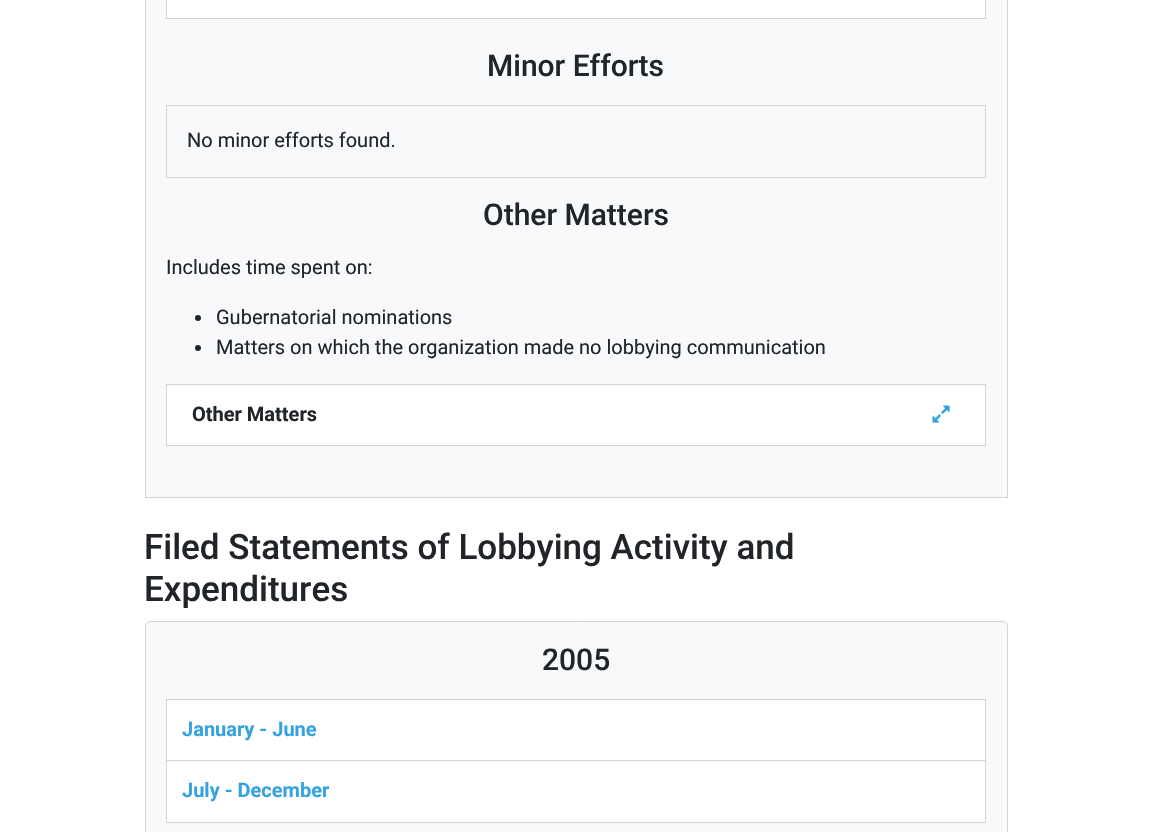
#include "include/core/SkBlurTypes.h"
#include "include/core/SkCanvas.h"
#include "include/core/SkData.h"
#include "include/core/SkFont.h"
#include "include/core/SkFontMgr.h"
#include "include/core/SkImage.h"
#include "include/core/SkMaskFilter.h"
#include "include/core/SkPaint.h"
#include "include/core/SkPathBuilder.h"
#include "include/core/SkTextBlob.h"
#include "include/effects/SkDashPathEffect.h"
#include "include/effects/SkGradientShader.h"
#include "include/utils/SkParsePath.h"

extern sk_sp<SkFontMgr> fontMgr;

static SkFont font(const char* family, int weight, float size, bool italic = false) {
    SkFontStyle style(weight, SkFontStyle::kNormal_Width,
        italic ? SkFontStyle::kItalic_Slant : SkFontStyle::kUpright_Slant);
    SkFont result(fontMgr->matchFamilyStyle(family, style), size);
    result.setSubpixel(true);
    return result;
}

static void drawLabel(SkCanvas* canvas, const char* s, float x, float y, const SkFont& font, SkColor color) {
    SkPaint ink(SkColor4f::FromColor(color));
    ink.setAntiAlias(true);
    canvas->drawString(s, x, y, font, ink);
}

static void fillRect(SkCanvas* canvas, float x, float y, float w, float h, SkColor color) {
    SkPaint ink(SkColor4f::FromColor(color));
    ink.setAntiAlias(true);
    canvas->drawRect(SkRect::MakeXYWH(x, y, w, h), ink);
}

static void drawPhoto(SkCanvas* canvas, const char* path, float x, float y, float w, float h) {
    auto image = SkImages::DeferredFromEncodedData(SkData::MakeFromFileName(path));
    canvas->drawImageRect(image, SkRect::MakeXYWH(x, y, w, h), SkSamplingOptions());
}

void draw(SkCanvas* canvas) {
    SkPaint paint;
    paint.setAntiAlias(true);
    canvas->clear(0xFFFFFFFF);
    paint.setColor(0xFFF8F9FA);
    canvas->drawRect(SkRect::MakeXYWH(145.5f, -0.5f, 862, 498), paint);
    paint.setStroke(true);
    paint.setStrokeWidth(1);
    paint.setColor(0xFFD3D3D3);
    canvas->drawRect(SkRect::MakeXYWH(145.5f, -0.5f, 862, 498), paint);
    paint.setStroke(false);
    paint.setColor(0xFFFFFFFF);
    canvas->drawRect(SkRect::MakeXYWH(166.5f, -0.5f, 819, 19), paint);
    paint.setStroke(true);
    paint.setColor(0xFFD3D3D3);
    canvas->drawRect(SkRect::MakeXYWH(166.5f, -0.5f, 819, 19), paint);
    SkFont font1 = font("Roboto", 500, 30);
    drawLabel(canvas, "Minor Efforts", 487, 76, font1, 0xFF212529);
    canvas->drawRect(SkRect::MakeXYWH(166.5f, 105.5f, 819, 72), paint);
    SkFont font2 = font("Roboto", 400, 20);
    drawLabel(canvas, "No minor efforts found.", 187, 147, font2, 0xFF212529);
    drawLabel(canvas, "Other Matters", 483, 225, font1, 0xFF212529);
    drawLabel(canvas, "Includes time spent on:", 166, 274, font2, 0xFF212529);
    paint.setStroke(false);
    paint.setColor(0xFF212529);
    canvas->drawCircle(198, 318, 3, paint);
    drawLabel(canvas, "Gubernatorial nominations", 216, 324, font2, 0xFF212529);
    canvas->drawCircle(198, 348, 3, paint);
    drawLabel(canvas, "Matters on which the organization made no lobbying communication", 216, 354, font2, 0xFF212529);
    paint.setColor(0xFFFFFFFF);
    canvas->drawRect(SkRect::MakeXYWH(166.5f, 384.5f, 819, 61), paint);
    paint.setStroke(true);
    paint.setColor(0xFFD3D3D3);
    canvas->drawRect(SkRect::MakeXYWH(166.5f, 384.5f, 819, 61), paint);
    SkFont font3 = font("Roboto", 700, 20);
    drawLabel(canvas, "Other Matters", 192, 421, font3, 0xFF212529);
    drawPhoto(canvas, "assets/img1.png", 932, 405, 18, 18);
    SkFont font4 = font("Roboto", 500, 35);
    drawLabel(canvas, "Filed Statements of Lobbying Activity and", 144, 559, font4, 0xFF212529);
    drawLabel(canvas, "Expenditures", 144, 601, font4, 0xFF212529);
    paint.setStroke(false);
    paint.setColor(0xFFF8F9FA);
    canvas->drawRoundRect(SkRect::MakeXYWH(145.5f, 621.5f, 862, 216), 4.5f, 4.5f, paint);
    paint.setStroke(true);
    paint.setColor(0xFFD3D3D3);
    canvas->drawRoundRect(SkRect::MakeXYWH(145.5f, 621.5f, 862, 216), 4.5f, 4.5f, paint);
    drawLabel(canvas, "2005", 542, 670, font1, 0xFF212529);
    fillRect(canvas, 167, 700, 818, 60, 0xFFFFFFFF);
    fillRect(canvas, 166, 699, 820, 1, 0xFFD3D3D3);
    fillRect(canvas, 985, 699, 1, 61, 0xFFD3D3D3);
    fillRect(canvas, 166, 699, 1, 61, 0xFFD3D3D3);
    drawLabel(canvas, "January - June", 182, 736, font3, 0xFF35A2E1);
    paint.setStroke(false);
    paint.setColor(0xFFFFFFFF);
    canvas->drawRect(SkRect::MakeXYWH(166.5f, 760.5f, 819, 62), paint);
    paint.setStroke(true);
    paint.setColor(0xFFD3D3D3);
    canvas->drawRect(SkRect::MakeXYWH(166.5f, 760.5f, 819, 62), paint);
    drawLabel(canvas, "July - December", 182, 797, font3, 0xFF35A2E1);
}
